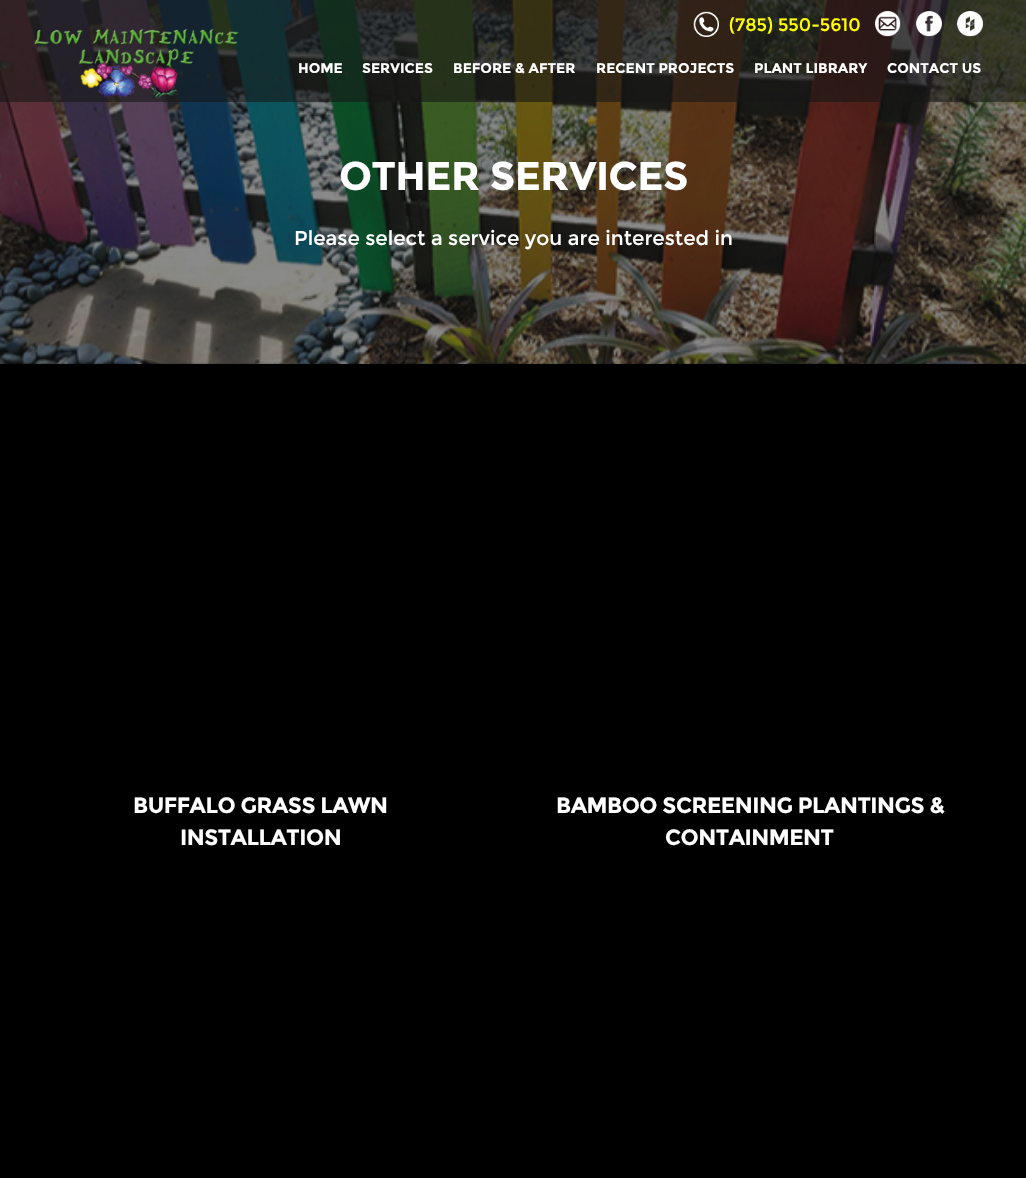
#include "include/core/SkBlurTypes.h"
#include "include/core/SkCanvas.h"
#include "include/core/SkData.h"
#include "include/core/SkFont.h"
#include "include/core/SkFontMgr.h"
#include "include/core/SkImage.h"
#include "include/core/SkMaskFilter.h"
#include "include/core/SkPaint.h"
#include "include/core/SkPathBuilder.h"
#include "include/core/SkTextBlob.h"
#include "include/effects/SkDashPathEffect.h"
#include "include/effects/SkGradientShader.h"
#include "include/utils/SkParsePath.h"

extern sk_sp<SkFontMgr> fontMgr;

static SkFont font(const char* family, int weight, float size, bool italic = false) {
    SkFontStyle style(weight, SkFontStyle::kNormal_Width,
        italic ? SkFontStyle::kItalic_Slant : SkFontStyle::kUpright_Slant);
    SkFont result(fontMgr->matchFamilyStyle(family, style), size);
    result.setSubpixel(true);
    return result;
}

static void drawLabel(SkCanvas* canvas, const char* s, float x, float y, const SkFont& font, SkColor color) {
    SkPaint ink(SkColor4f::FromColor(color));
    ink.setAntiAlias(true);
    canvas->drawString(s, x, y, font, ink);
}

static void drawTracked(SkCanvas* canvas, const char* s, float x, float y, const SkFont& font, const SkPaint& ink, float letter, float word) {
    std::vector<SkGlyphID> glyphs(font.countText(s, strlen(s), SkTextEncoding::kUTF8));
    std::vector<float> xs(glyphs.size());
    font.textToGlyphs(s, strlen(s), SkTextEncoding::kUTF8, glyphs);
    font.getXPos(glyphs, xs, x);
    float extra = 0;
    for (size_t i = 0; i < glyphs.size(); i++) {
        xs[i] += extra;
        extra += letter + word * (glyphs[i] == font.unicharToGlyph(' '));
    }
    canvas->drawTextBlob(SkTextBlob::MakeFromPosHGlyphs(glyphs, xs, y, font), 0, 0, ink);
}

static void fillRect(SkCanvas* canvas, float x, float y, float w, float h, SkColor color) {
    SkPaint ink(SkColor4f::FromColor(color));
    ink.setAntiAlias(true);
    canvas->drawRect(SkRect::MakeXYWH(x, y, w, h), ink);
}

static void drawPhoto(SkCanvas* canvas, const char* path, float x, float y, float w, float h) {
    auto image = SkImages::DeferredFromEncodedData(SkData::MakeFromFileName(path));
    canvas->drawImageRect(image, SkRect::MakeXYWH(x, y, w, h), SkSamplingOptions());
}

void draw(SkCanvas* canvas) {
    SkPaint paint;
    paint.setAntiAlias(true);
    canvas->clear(0xFF000000);
    drawPhoto(canvas, "assets/img6.png", 0, 0, 1026, 364);
    fillRect(canvas, 0, 0, 1026, 102, 0x99151515);
    drawPhoto(canvas, "assets/img1.png", 34, 28, 205, 72);
    drawPhoto(canvas, "assets/img2.png", 693, 11, 26, 26);
    SkFont font1 = font("Montserrat", 400, 18);
    drawLabel(canvas, "(785) 550-5610", 729, 31, font1, 0xFFFFFF00);
    drawPhoto(canvas, "assets/img3.png", 875, 11, 26, 26);
    drawPhoto(canvas, "assets/img4.png", 916, 11, 26, 26);
    drawPhoto(canvas, "assets/img5.png", 957, 11, 26, 26);
    SkFont font2 = font("Montserrat", 700, 14);
    drawLabel(canvas, "HOME", 298, 73, font2, 0xFFFFFFFF);
    drawLabel(canvas, "SERVICES", 362, 73, font2, 0xFFFFFFFF);
    drawLabel(canvas, "BEFORE & AFTER", 453, 73, font2, 0xFFFFFFFF);
    drawLabel(canvas, "RECENT PROJECTS", 596, 73, font2, 0xFFFFFFFF);
    drawLabel(canvas, "PLANT LIBRARY", 754, 73, font2, 0xFFFFFFFF);
    drawLabel(canvas, "CONTACT US", 887, 73, font2, 0xFFFFFFFF);
    SkFont font3 = font("Montserrat", 700, 40);
    paint.setColor(0xFFFFFFFF);
    drawTracked(canvas, "OTHER SERVICES", 339, 190, font3, paint, -0.5f, 0);
    SkFont font4 = font("Montserrat", 400, 20);
    drawLabel(canvas, "Please select a service you are interested in", 294, 245, font4, 0xFFFFFFFF);
    SkFont font5 = font("Montserrat", 700, 22);
    drawTracked(canvas, "BUFFALO GRASS LAWN", 133, 813, font5, paint, -0.5f, 0);
    drawTracked(canvas, "INSTALLATION", 180, 845, font5, paint, -0.5f, 0);
    drawTracked(canvas, "BAMBOO SCREENING PLANTINGS &", 556, 813, font5, paint, -0.5f, 0);
    drawTracked(canvas, "CONTAINMENT", 665, 845, font5, paint, -0.5f, 0);
}
